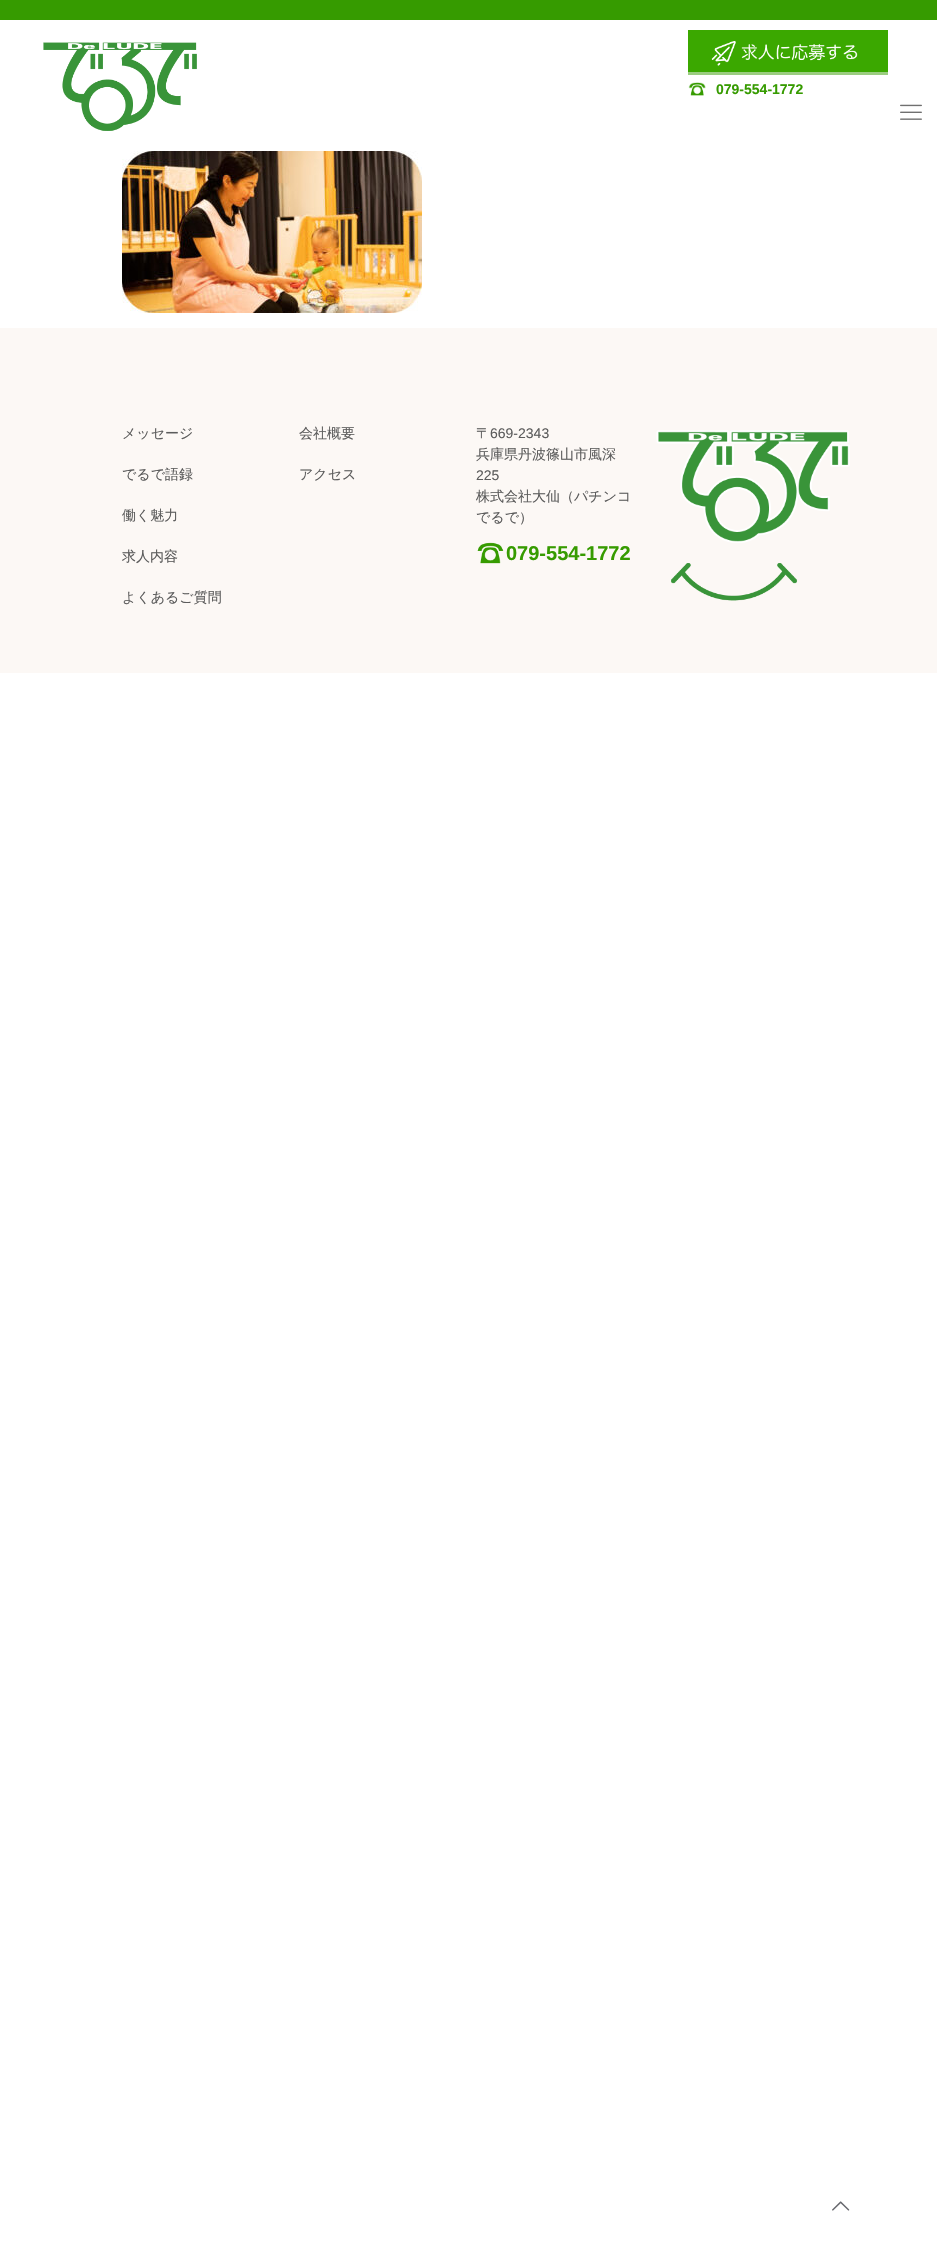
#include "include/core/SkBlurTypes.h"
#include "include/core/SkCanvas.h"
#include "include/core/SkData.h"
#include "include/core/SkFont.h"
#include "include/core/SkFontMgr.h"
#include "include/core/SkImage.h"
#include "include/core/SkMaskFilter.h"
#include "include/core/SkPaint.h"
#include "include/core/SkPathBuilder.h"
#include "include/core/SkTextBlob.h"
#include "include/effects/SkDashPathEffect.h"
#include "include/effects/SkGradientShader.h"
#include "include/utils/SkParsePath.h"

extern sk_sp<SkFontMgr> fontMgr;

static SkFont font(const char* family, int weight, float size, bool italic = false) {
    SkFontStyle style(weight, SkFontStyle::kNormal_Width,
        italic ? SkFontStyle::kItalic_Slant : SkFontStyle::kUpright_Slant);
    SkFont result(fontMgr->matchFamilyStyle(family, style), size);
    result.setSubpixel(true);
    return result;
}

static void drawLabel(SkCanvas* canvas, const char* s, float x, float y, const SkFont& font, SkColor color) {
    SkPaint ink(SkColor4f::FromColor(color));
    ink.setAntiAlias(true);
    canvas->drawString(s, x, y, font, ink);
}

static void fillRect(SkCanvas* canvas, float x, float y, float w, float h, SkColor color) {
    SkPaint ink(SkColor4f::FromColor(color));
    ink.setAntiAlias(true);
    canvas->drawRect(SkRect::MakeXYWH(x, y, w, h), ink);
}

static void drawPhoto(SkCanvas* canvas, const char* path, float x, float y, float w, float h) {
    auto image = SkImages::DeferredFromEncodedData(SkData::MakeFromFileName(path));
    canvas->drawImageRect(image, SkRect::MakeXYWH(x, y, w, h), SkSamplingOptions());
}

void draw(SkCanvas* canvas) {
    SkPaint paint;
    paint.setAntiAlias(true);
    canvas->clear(0xFFFFFFFF);
    fillRect(canvas, 0, 0, 937, 20, 0xFF369B00);
    drawPhoto(canvas, "assets/img1.png", 43, 42, 154, 89);
    fillRect(canvas, 688, 72, 200, 3, 0xFF9BCD80);
    drawPhoto(canvas, "assets/img2.png", 688, 30, 200, 42);
    drawPhoto(canvas, "assets/img3.png", 688, 82, 18, 14);
    SkFont font1 = font("Liberation Sans", 700, 14);
    drawLabel(canvas, "079-554-1772", 716, 94, font1, 0xFF369B00);
    drawPhoto(canvas, "assets/img4.png", 900, 104, 22, 16);
    drawPhoto(canvas, "assets/img5.png", 122, 151, 300, 162);
    fillRect(canvas, 0, 328, 937, 345, 0xFFFCF8F5);
    SkFont font2 = font("WenQuanYi Zen Hei", 500, 14);
    drawLabel(canvas, "メッセージ", 122, 438, font2, 0xFF5C5C5C);
    drawLabel(canvas, "でるで語録", 122, 479, font2, 0xFF5C5C5C);
    drawLabel(canvas, "働く魅力", 122, 520, font2, 0xFF5C5C5C);
    drawLabel(canvas, "求人内容", 122, 561, font2, 0xFF5C5C5C);
    drawLabel(canvas, "よくあるご質問", 122, 602, font2, 0xFF5C5C5C);
    drawLabel(canvas, "会社概要", 299, 438, font2, 0xFF5C5C5C);
    drawLabel(canvas, "アクセス", 299, 479, font2, 0xFF5C5C5C);
    drawLabel(canvas, "〒", 476, 438, font2, 0xFF5C5C5C);
    SkFont font3 = font("Liberation Sans", 400, 14);
    drawLabel(canvas, "669-2343", 490, 438, font3, 0xFF5C5C5C);
    drawLabel(canvas, "兵庫県丹波篠山市風深", 476, 459, font2, 0xFF5C5C5C);
    drawLabel(canvas, "225", 476, 480, font3, 0xFF5C5C5C);
    drawLabel(canvas, "株式会社大仙（パチンコ", 476, 501, font2, 0xFF5C5C5C);
    drawLabel(canvas, "でるで）", 476, 522, font2, 0xFF5C5C5C);
    drawPhoto(canvas, "assets/img6.png", 477, 542, 27, 22);
    SkFont font4 = font("Liberation Sans", 700, 20);
    drawLabel(canvas, "079-554-1772", 506, 560, font4, 0xFF369B00);
    drawPhoto(canvas, "assets/img7.png", 656, 430, 194, 113);
    drawPhoto(canvas, "assets/img8.png", 671, 563, 127, 38);
    drawPhoto(canvas, "assets/img9.png", 832, 2201, 18, 10);
}
